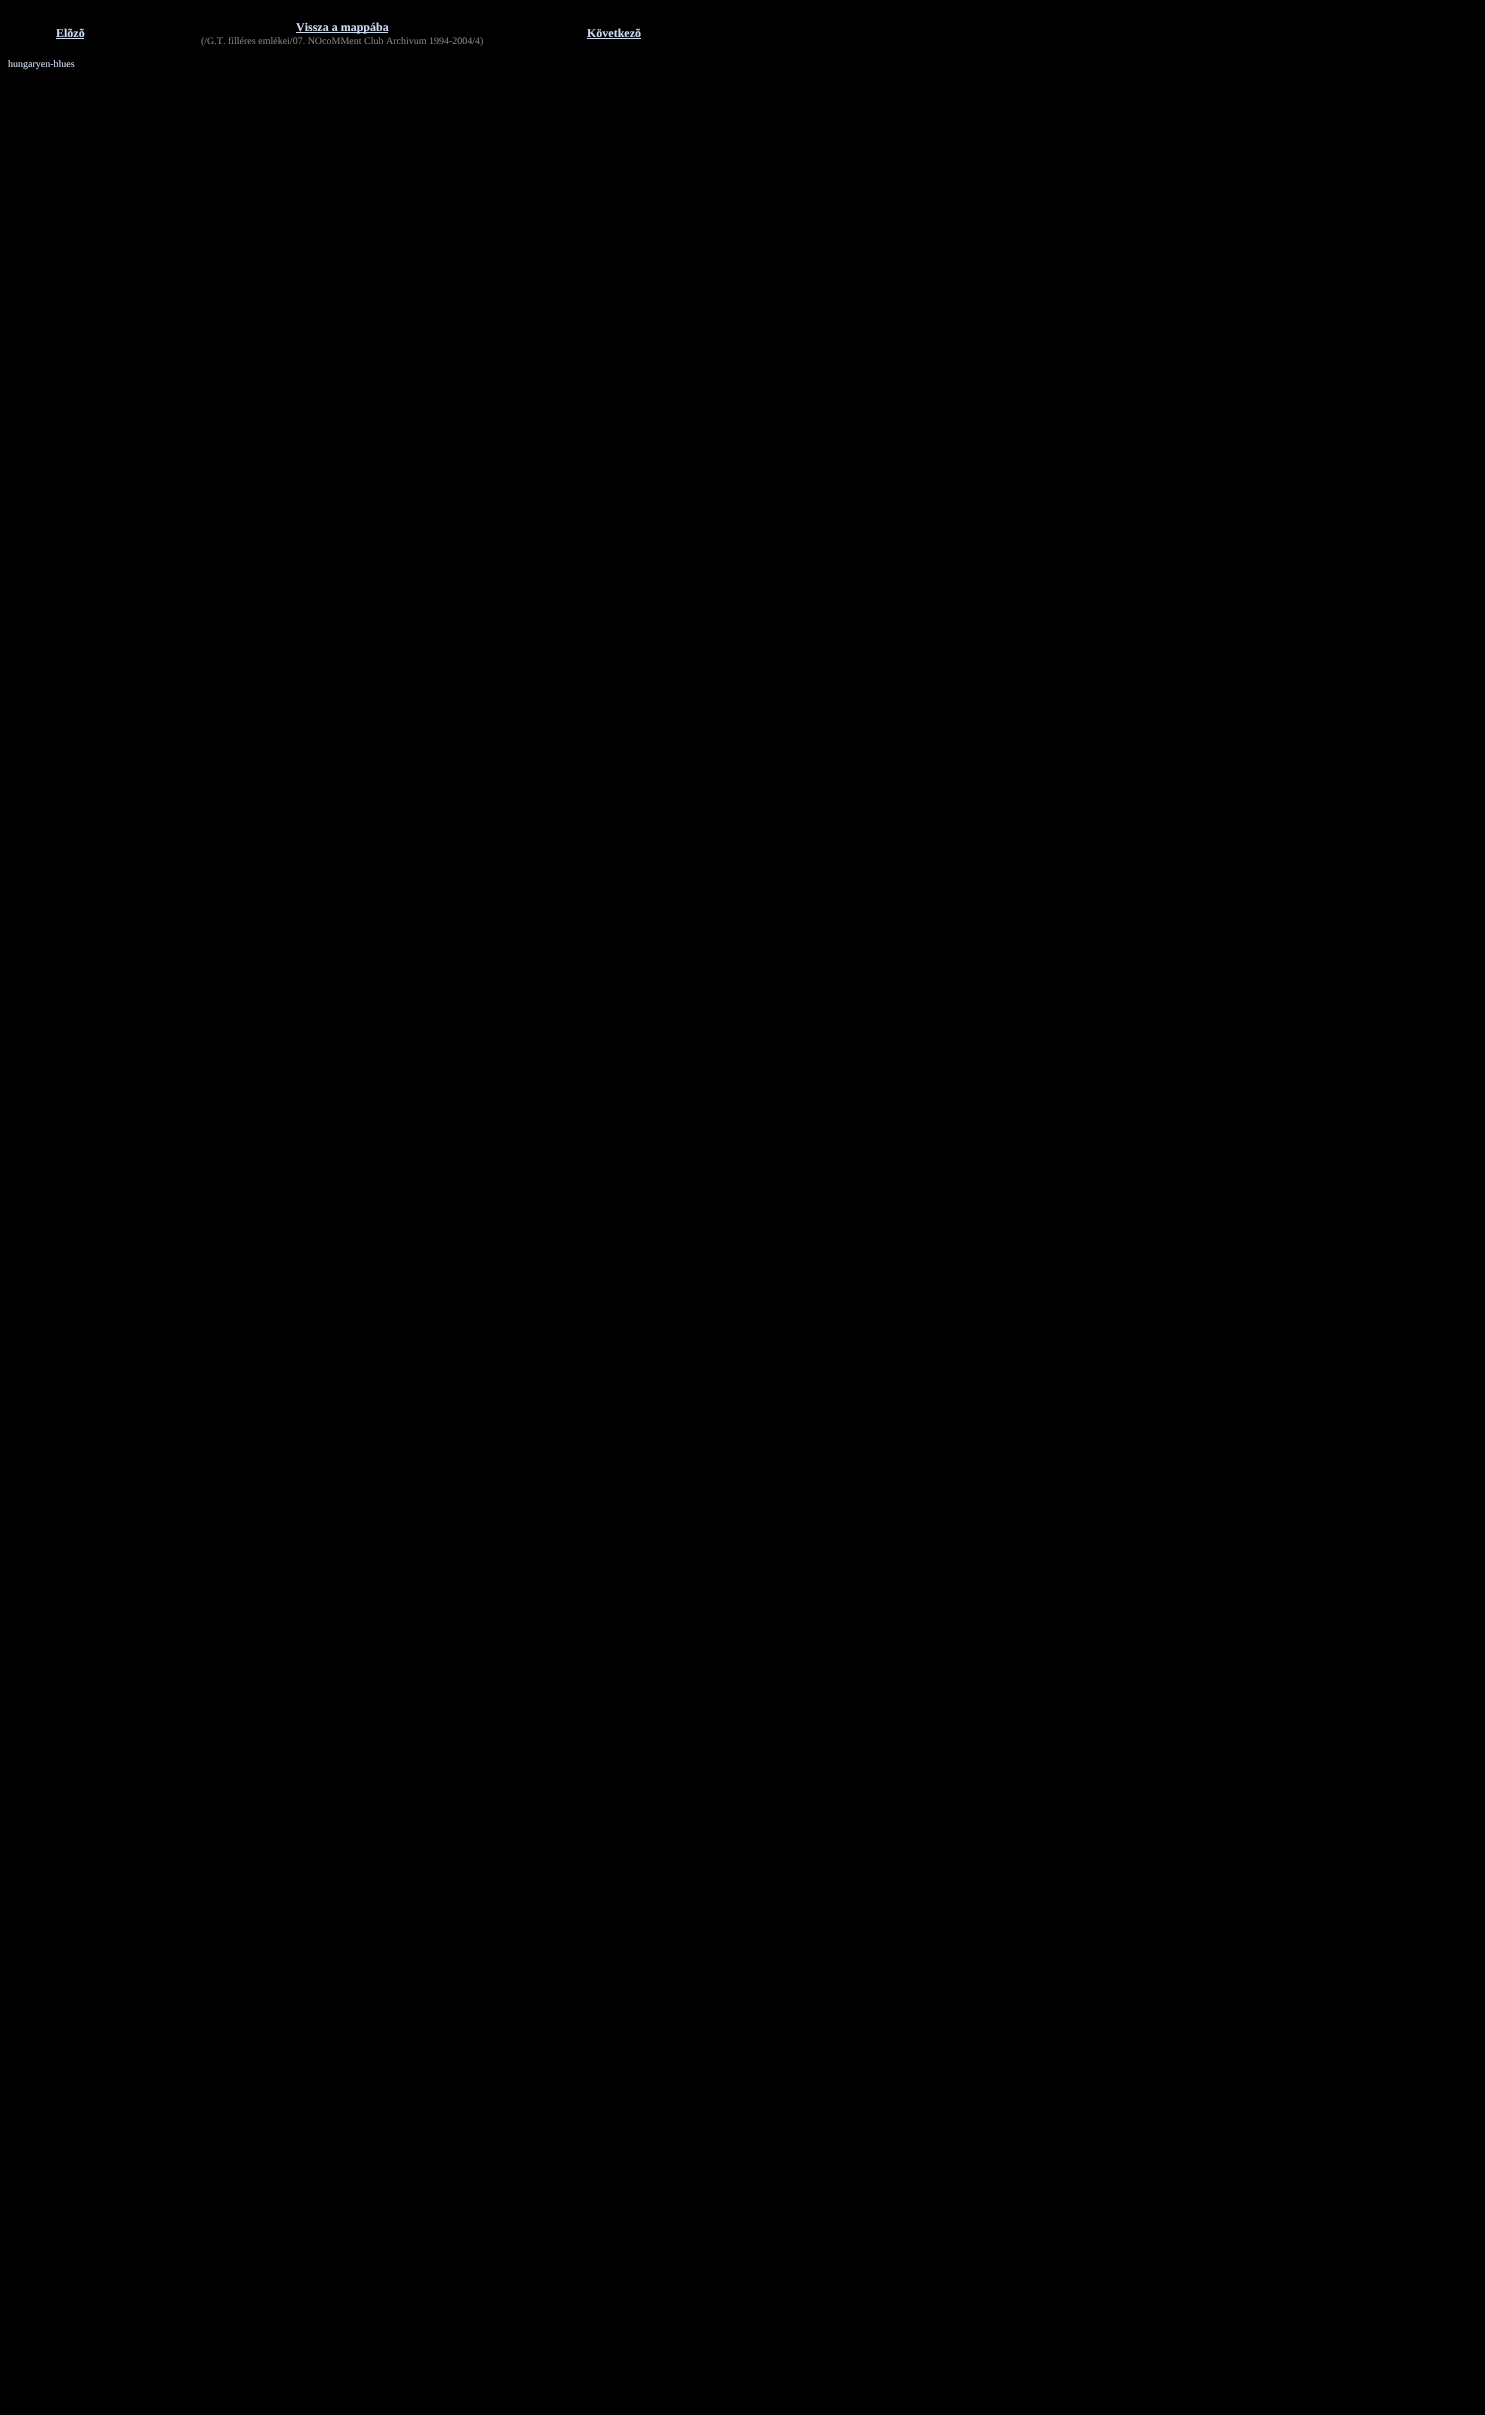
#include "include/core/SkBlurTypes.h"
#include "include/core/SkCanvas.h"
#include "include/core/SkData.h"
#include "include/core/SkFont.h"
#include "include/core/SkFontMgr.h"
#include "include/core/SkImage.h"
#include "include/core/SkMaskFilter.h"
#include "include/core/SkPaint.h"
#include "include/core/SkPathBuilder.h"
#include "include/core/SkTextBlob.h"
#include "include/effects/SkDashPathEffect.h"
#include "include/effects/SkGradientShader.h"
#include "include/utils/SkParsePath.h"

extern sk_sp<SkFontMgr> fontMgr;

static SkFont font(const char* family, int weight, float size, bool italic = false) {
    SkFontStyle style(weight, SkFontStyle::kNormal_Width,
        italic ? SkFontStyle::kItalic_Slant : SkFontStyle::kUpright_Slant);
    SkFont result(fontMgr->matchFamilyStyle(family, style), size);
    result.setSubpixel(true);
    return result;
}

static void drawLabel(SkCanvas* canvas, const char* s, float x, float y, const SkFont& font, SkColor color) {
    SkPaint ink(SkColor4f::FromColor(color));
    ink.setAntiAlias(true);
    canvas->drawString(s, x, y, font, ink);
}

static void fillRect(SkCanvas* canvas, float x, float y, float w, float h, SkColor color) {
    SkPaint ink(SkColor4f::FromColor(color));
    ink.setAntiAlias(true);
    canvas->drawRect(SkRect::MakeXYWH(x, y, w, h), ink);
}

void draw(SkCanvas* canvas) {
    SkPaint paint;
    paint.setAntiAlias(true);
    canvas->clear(0xFF000000);
    SkFont font1 = font("Liberation Serif", 700, 12);
    drawLabel(canvas, "Elõzõ", 56, 37, font1, 0xFFCBD9EF);
    fillRect(canvas, 56, 38, 28, 1, 0xFFCBD9EF);
    fillRect(canvas, 296, 32, 92, 1, 0xFFCBD9EF);
    drawLabel(canvas, "Vissza a mappába", 296, 31, font1, 0xFFCBD9EF);
    SkFont font2 = font("Liberation Serif", 400, 10);
    drawLabel(canvas, "(/G.T. filléres emlékei/07. NOcoMMent Club Archivum 1994-2004/4)", 201, 44, font2, 0xFF808080);
    drawLabel(canvas, "Következõ", 587, 37, font1, 0xFFCBD9EF);
    fillRect(canvas, 587, 38, 54, 1, 0xFFCBD9EF);
    drawLabel(canvas, "hungaryen-blues", 8, 67, font2, 0xFFCBD9EF);
}
